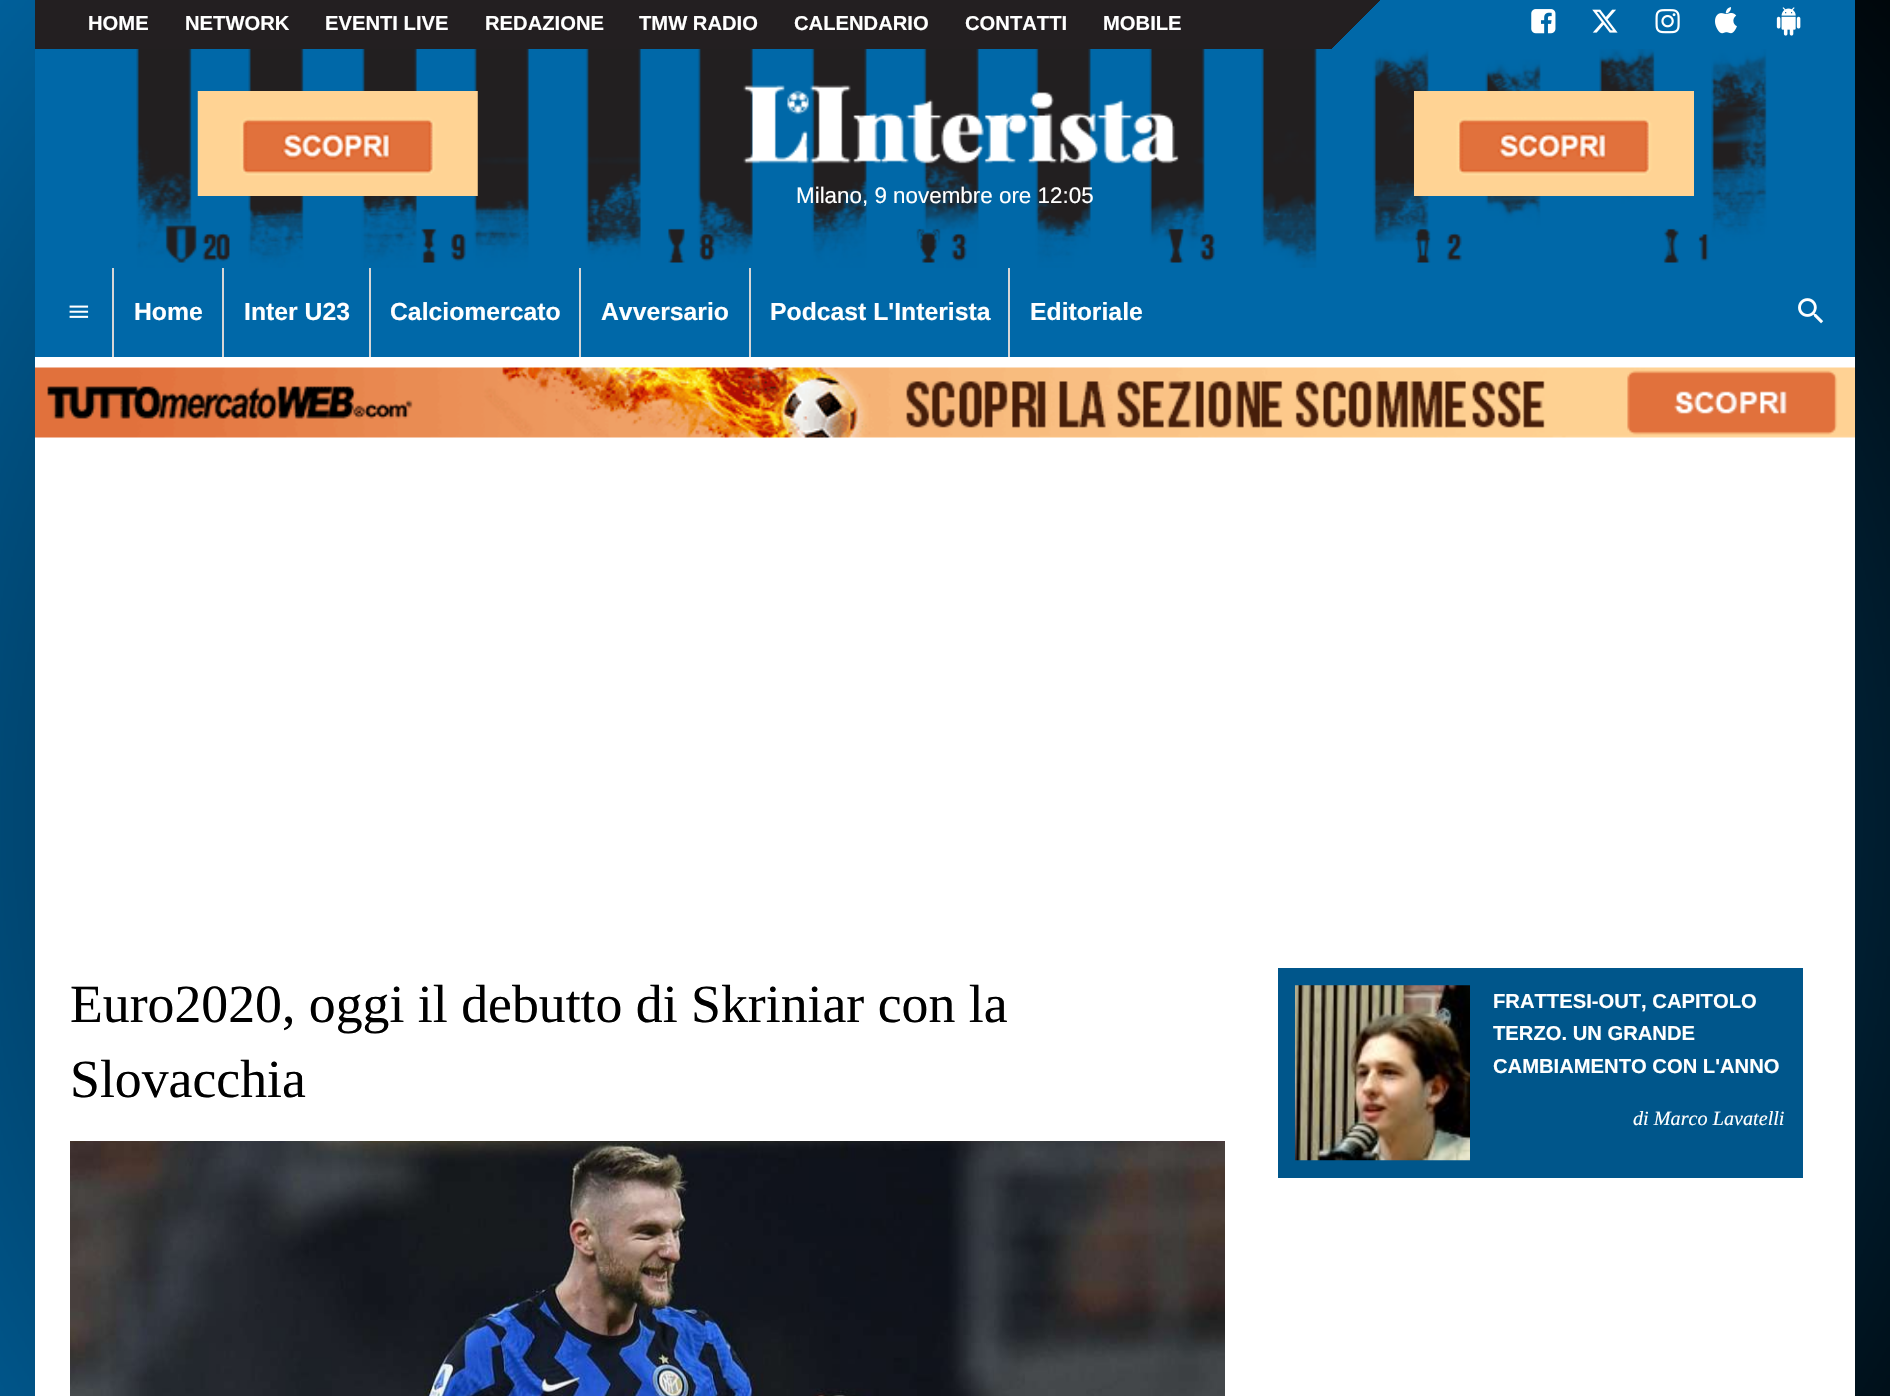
#include "include/core/SkBlurTypes.h"
#include "include/core/SkCanvas.h"
#include "include/core/SkData.h"
#include "include/core/SkFont.h"
#include "include/core/SkFontMgr.h"
#include "include/core/SkImage.h"
#include "include/core/SkMaskFilter.h"
#include "include/core/SkPaint.h"
#include "include/core/SkPathBuilder.h"
#include "include/core/SkTextBlob.h"
#include "include/effects/SkDashPathEffect.h"
#include "include/effects/SkGradientShader.h"
#include "include/utils/SkParsePath.h"

extern sk_sp<SkFontMgr> fontMgr;

static SkFont font(const char* family, int weight, float size, bool italic = false) {
    SkFontStyle style(weight, SkFontStyle::kNormal_Width,
        italic ? SkFontStyle::kItalic_Slant : SkFontStyle::kUpright_Slant);
    SkFont result(fontMgr->matchFamilyStyle(family, style), size);
    result.setSubpixel(true);
    return result;
}

static void drawLabel(SkCanvas* canvas, const char* s, float x, float y, const SkFont& font, SkColor color) {
    SkPaint ink(SkColor4f::FromColor(color));
    ink.setAntiAlias(true);
    canvas->drawString(s, x, y, font, ink);
}

static void fillRect(SkCanvas* canvas, float x, float y, float w, float h, SkColor color) {
    SkPaint ink(SkColor4f::FromColor(color));
    ink.setAntiAlias(true);
    canvas->drawRect(SkRect::MakeXYWH(x, y, w, h), ink);
}

static void drawPhoto(SkCanvas* canvas, const char* path, float x, float y, float w, float h) {
    auto image = SkImages::DeferredFromEncodedData(SkData::MakeFromFileName(path));
    canvas->drawImageRect(image, SkRect::MakeXYWH(x, y, w, h), SkSamplingOptions());
}

void draw(SkCanvas* canvas) {
    SkPaint paint;
    paint.setAntiAlias(true);
    canvas->clear(0xFFFFFFFF);
    drawPhoto(canvas, "assets/img1.png", 0, 0, 1890, 1396);
    fillRect(canvas, 35, 357, 1820, 1039, 0xFFFFFFFF);
    {
        const SkColor colors[] = {0xFF231F21, 0xFF0068A8, 0xFF0068A8};
        const float stops[] = {0.72f, 0.72f, 1};
        const SkPoint ends[] = {{478, -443}, {1412, 492}};
        paint.setShader(SkGradientShader::MakeLinear(ends, colors, stops, 3, SkTileMode::kClamp));
        paint.setAlpha(255);
    }
    canvas->drawRect(SkRect::MakeXYWH(35, 0, 1820, 49), paint);
    SkFont font1 = font("Liberation Sans", 700, 20.2f);
    drawLabel(canvas, "HOME", 88, 30, font1, 0xFFFFFFFF);
    drawLabel(canvas, "NETWORK", 185, 30, font1, 0xFFFFFFFF);
    drawLabel(canvas, "EVENTI LIVE", 325, 30, font1, 0xFFFFFFFF);
    drawLabel(canvas, "REDAZIONE", 485, 30, font1, 0xFFFFFFFF);
    drawLabel(canvas, "TMW RADIO", 639, 30, font1, 0xFFFFFFFF);
    drawLabel(canvas, "CALENDARIO", 794, 30, font1, 0xFFFFFFFF);
    drawLabel(canvas, "CONTATTI", 965, 30, font1, 0xFFFFFFFF);
    drawLabel(canvas, "MOBILE", 1103, 30, font1, 0xFFFFFFFF);
    drawPhoto(canvas, "assets/img2.png", 1531, 9, 25, 25);
    drawPhoto(canvas, "assets/img3.png", 1592, 9, 26, 24);
    drawPhoto(canvas, "assets/img4.png", 1655, 9, 25, 25);
    drawPhoto(canvas, "assets/img5.png", 1715, 7, 22, 27);
    drawPhoto(canvas, "assets/img6.png", 1776, 7, 25, 29);
    fillRect(canvas, 35, 49, 1820, 308, 0xFF0068A8);
    drawPhoto(canvas, "assets/img7.png", 136, 49, 1631, 219);
    drawPhoto(canvas, "assets/img8.png", 197, 91, 281, 105);
    drawPhoto(canvas, "assets/img9.png", 743, 85, 436, 79);
    SkFont font2 = font("Liberation Sans", 400, 22.4f);
    drawLabel(canvas, "Milano, 9 novembre ore 12:05", 796, 203, font2, 0xFFFFFFFF);
    drawPhoto(canvas, "assets/img10.png", 1414, 91, 280, 105);
    drawPhoto(canvas, "assets/img11.png", 69, 305, 20, 13);
    fillRect(canvas, 112, 268, 2, 89, 0xFFD6D6D6);
    SkFont font3 = font("Liberation Sans", 700, 24.75f);
    drawLabel(canvas, "Home", 134, 320, font3, 0xFFFFFFFF);
    fillRect(canvas, 222, 268, 2, 89, 0xFFD6D6D6);
    drawLabel(canvas, "Inter U23", 244, 320, font3, 0xFFFFFFFF);
    fillRect(canvas, 369, 268, 2, 89, 0xFFD6D6D6);
    drawLabel(canvas, "Calciomercato", 390, 320, font3, 0xFFFFFFFF);
    fillRect(canvas, 579, 268, 2, 89, 0xFFD6D6D6);
    drawLabel(canvas, "Avversario", 601, 320, font3, 0xFFFFFFFF);
    fillRect(canvas, 749, 268, 2, 89, 0xFFD6D6D6);
    drawLabel(canvas, "Podcast L'Interista", 770, 320, font3, 0xFFFFFFFF);
    fillRect(canvas, 1008, 268, 2, 89, 0xFFD6D6D6);
    drawLabel(canvas, "Editoriale", 1030, 320, font3, 0xFFFFFFFF);
    drawPhoto(canvas, "assets/img12.png", 1798, 298, 26, 26);
    drawPhoto(canvas, "assets/img13.png", 35, 367, 1820, 71);
    SkFont font4 = font("Liberation Serif", 400, 53.75f);
    drawLabel(canvas, "Euro2020, oggi il debutto di Skriniar con la", 70, 1022, font4, 0xFF000000);
    drawLabel(canvas, "Slovacchia", 70, 1097, font4, 0xFF000000);
    drawPhoto(canvas, "assets/img14.png", 70, 1141, 1155, 255);
    fillRect(canvas, 1278, 968, 525, 210, 0xFF00568B);
    drawPhoto(canvas, "assets/img15.png", 1295, 985, 175, 176);
    drawLabel(canvas, "FRATTESI-OUT, CAPITOLO", 1493, 1008, font1, 0xFFFFFFFF);
    drawLabel(canvas, "TERZO. UN GRANDE", 1493, 1040, font1, 0xFFFFFFFF);
    drawLabel(canvas, "CAMBIAMENTO CON L'ANNO", 1493, 1073, font1, 0xFFFFFFFF);
    SkFont font5 = font("Liberation Serif", 400, 20.2f, true);
    drawLabel(canvas, "di Marco Lavatelli", 1633, 1125, font5, 0xFFFFFFFF);
}
